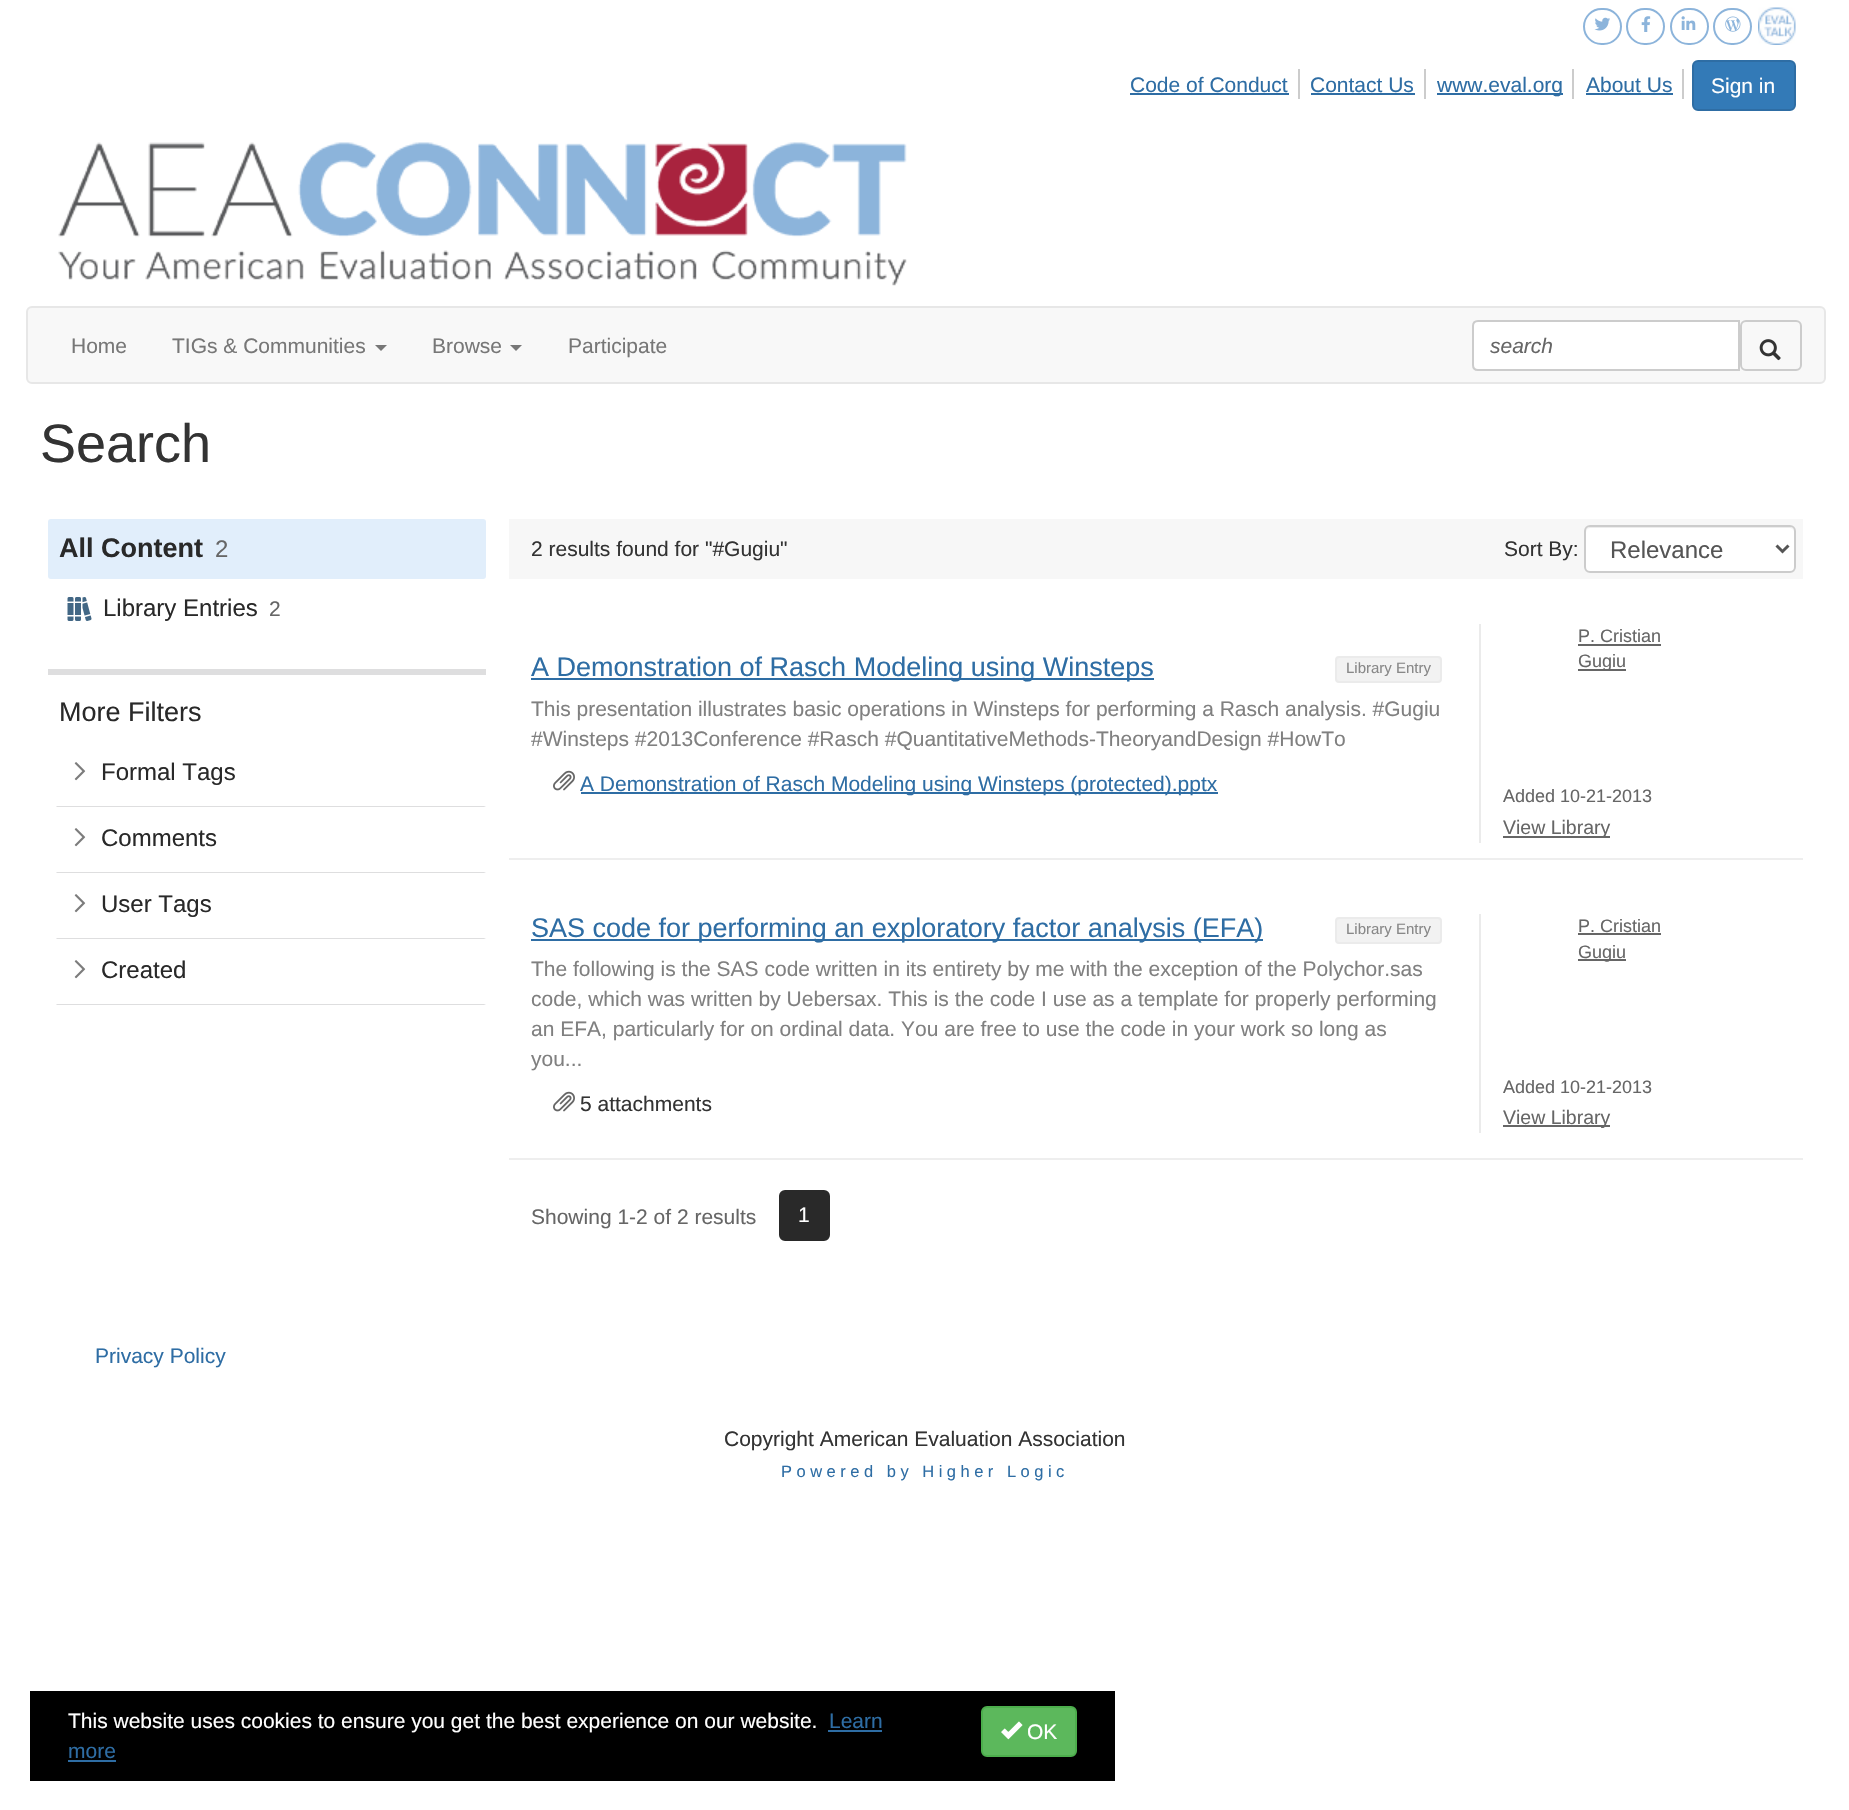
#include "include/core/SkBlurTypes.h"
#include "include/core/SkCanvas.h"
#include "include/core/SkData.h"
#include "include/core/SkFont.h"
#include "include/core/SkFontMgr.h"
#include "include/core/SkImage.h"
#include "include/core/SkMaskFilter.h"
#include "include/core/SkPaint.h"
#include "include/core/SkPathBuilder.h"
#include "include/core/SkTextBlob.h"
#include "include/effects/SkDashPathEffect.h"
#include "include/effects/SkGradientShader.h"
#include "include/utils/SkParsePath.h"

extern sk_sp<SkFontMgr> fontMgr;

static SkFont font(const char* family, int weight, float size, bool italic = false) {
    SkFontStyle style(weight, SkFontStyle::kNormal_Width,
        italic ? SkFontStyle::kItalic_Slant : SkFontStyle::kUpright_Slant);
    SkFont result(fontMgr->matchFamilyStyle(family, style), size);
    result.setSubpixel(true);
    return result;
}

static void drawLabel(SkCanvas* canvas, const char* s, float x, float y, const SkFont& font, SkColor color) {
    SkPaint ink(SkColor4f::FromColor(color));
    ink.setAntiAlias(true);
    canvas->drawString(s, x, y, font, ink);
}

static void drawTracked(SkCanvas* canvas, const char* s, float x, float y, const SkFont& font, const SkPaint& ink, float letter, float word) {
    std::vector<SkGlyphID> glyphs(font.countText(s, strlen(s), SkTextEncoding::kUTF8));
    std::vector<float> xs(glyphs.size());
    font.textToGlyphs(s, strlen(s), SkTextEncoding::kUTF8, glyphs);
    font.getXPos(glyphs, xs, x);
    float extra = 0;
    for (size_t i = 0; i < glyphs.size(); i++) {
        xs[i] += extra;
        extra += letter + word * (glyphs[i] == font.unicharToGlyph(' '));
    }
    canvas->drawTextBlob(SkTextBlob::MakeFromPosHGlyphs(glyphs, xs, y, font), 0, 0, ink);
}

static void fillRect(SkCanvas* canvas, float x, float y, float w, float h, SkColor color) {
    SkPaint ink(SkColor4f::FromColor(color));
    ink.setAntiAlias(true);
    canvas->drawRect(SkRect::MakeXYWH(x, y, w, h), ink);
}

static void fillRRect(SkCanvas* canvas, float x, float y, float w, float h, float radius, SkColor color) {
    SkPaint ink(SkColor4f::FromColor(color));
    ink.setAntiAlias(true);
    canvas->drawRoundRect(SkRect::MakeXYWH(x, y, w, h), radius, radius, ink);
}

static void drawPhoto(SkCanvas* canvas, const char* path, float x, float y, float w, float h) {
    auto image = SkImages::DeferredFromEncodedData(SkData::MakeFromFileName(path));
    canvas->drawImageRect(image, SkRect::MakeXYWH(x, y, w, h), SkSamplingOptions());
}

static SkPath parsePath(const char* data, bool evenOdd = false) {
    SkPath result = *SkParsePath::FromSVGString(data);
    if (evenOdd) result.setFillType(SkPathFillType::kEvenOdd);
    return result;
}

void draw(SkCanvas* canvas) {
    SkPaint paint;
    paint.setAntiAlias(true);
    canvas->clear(0xFFFFFFFF);
    paint.setStroke(true);
    paint.setStrokeWidth(2);
    paint.setColor(0xFF8CB4DB);
    canvas->drawRoundRect(SkRect::MakeXYWH(1584, 9, 37, 35), 17.5f, 17.5f, paint);
    drawPhoto(canvas, "assets/img1.png", 1594, 17, 16, 14);
    canvas->drawRoundRect(SkRect::MakeXYWH(1627, 9, 37, 35), 17.5f, 17.5f, paint);
    drawPhoto(canvas, "assets/img2.png", 1641, 16, 10, 16);
    canvas->drawRoundRect(SkRect::MakeXYWH(1671, 9, 37, 35), 17.5f, 17.5f, paint);
    drawPhoto(canvas, "assets/img3.png", 1681, 16, 15, 14);
    canvas->drawRoundRect(SkRect::MakeXYWH(1714, 9, 37, 35), 17.5f, 17.5f, paint);
    drawPhoto(canvas, "assets/img4.png", 1725, 16, 16, 16);
    drawPhoto(canvas, "assets/img5.png", 1758, 7, 38, 38);
    fillRect(canvas, 1298, 69, 2, 30, 0xFFCCCCCC);
    SkFont font1 = font("Liberation Sans", 400, 21);
    drawLabel(canvas, "Code of Conduct", 1130, 92, font1, 0xFF2E6DA4);
    fillRect(canvas, 1130, 93, 159, 2, 0xFF2E6DA4);
    fillRect(canvas, 1424, 69, 2, 30, 0xFFCCCCCC);
    drawLabel(canvas, "Contact Us", 1310, 92, font1, 0xFF2E6DA4);
    fillRect(canvas, 1311, 93, 104, 2, 0xFF2E6DA4);
    fillRect(canvas, 1572, 69, 2, 30, 0xFFCCCCCC);
    fillRect(canvas, 1437, 93, 126, 2, 0xFF2E6DA4);
    drawLabel(canvas, "www.eval.org", 1437, 92, font1, 0xFF2E6DA4);
    fillRect(canvas, 1682, 69, 2, 30, 0xFFCCCCCC);
    drawLabel(canvas, "About Us", 1586, 92, font1, 0xFF2E6DA4);
    fillRect(canvas, 1586, 93, 87, 2, 0xFF2E6DA4);
    paint.setStroke(false);
    paint.setColor(0xFF337AB7);
    canvas->drawRoundRect(SkRect::MakeXYWH(1693, 61, 102, 49), 5, 5, paint);
    paint.setStroke(true);
    paint.setColor(0xFF2E6DA4);
    canvas->drawRoundRect(SkRect::MakeXYWH(1693, 61, 102, 49), 5, 5, paint);
    drawLabel(canvas, "Sign in", 1711, 93, font1, 0xFFFFFFFF);
    drawPhoto(canvas, "assets/img6.png", 58, 142, 849, 144);
    paint.setStroke(false);
    paint.setColor(0xFFF8F8F8);
    canvas->drawRoundRect(SkRect::MakeXYWH(27, 307, 1798, 76), 5, 5, paint);
    paint.setStroke(true);
    paint.setColor(0xFFE7E7E7);
    canvas->drawRoundRect(SkRect::MakeXYWH(27, 307, 1798, 76), 5, 5, paint);
    drawLabel(canvas, "Home", 71, 353, font1, 0xFF777777);
    drawLabel(canvas, "TIGs & Communities", 172, 353, font1, 0xFF777777);
    paint.setStroke(false);
    paint.setColor(0xFF777777);
    canvas->drawPath(parsePath("M375 345H387L381 351Z"), paint);
    drawLabel(canvas, "Browse", 432, 353, font1, 0xFF777777);
    canvas->drawPath(parsePath("M510 345H522L516 351Z"), paint);
    drawLabel(canvas, "Participate", 568, 353, font1, 0xFF777777);
    paint.setColor(0xFFFFFFFF);
    canvas->drawPath(parsePath("M1478 321H1739V370H1478C1475 370 1473 368 1473 365V326C1473 323 1475 321 1478 321Z"), paint);
    paint.setStroke(true);
    paint.setColor(0xFFCCCCCC);
    canvas->drawPath(parsePath("M1478 321H1739V370H1478C1475 370 1473 368 1473 365V326C1473 323 1475 321 1478 321Z"), paint);
    SkFont font2 = font("Liberation Sans", 400, 21, true);
    drawLabel(canvas, "search", 1490, 353, font2, 0xFF666666);
    canvas->drawRoundRect(SkRect::MakeXYWH(1741, 321, 60, 49), 5, 5, paint);
    drawPhoto(canvas, "assets/img7.png", 1759, 339, 22, 22);
    SkFont font3 = font("Liberation Sans", 400, 54);
    drawLabel(canvas, "Search", 40, 462, font3, 0xFF333333);
    fillRRect(canvas, 48, 519, 438, 60, 3, 0xFFE1EEFB);
    SkFont font4 = font("Liberation Sans", 700, 27);
    drawLabel(canvas, "All Content", 59, 557, font4, 0xFF292929);
    SkFont font5 = font("Liberation Sans", 400, 24);
    drawLabel(canvas, "2", 215, 557, font5, 0xFF666666);
    drawPhoto(canvas, "assets/img8.png", 67, 597, 25, 24);
    drawLabel(canvas, "Library Entries", 103, 616, font5, 0xFF292929);
    drawLabel(canvas, "2", 269, 616, font1, 0xFF666666);
    fillRect(canvas, 48, 669, 438, 6, 0xFFDEDEDF);
    SkFont font6 = font("Liberation Sans", 400, 27);
    drawLabel(canvas, "More Filters", 59, 721, font6, 0xFF292929);
    paint.setStroke(false);
    paint.setColor(0xFFDEDEDF);
    canvas->drawPath(parsePath("M486 807H56L57 806H484Z"), paint);
    drawPhoto(canvas, "assets/img9.png", 74, 762, 12, 19);
    drawLabel(canvas, "Formal Tags", 101, 780, font5, 0xFF292929);
    canvas->drawPath(parsePath("M486 873H56L57 872H484Z"), paint);
    drawPhoto(canvas, "assets/img9.png", 74, 828, 12, 19);
    drawLabel(canvas, "Comments", 101, 846, font5, 0xFF292929);
    canvas->drawPath(parsePath("M486 939H56L57 938H484Z"), paint);
    drawPhoto(canvas, "assets/img9.png", 74, 894, 12, 19);
    drawLabel(canvas, "User Tags", 101, 912, font5, 0xFF292929);
    canvas->drawPath(parsePath("M486 1005H56L57 1004H484Z"), paint);
    drawPhoto(canvas, "assets/img9.png", 74, 960, 12, 19);
    drawLabel(canvas, "Created", 101, 978, font5, 0xFF292929);
    fillRect(canvas, 509, 519, 1294, 60, 0xFFF7F7F7);
    drawLabel(canvas, "2 results found for \"#Gugiu\"", 531, 556, font1, 0xFF333333);
    drawLabel(canvas, "Sort By:", 1504, 556, font1, 0xFF333333);
    fillRRect(canvas, 1584, 525, 212, 48, 6, 0xFFFFFFFF);
    paint.setColor(0xFFECECEC);
    canvas->drawPath(parsePath("M1590 528H1790C1792 528 1794 530 1794 532C1794 529 1792 527 1789 527H1591C1588 527 1586 529 1586 532C1586 530 1588 528 1590 528Z"), paint);
    paint.setStroke(true);
    paint.setColor(0xFFCCCCCC);
    canvas->drawRoundRect(SkRect::MakeXYWH(1585, 526, 210, 46), 5, 5, paint);
    paint.setStrokeWidth(3);
    paint.setColor(0xFF555555);
    canvas->drawPath(parsePath("M1776.5 545.5L1782.5 551.5L1788.5 545.5"), paint);
    drawLabel(canvas, "Relevance", 1610, 558, font5, 0xFF555555);
    fillRect(canvas, 531, 678, 623, 2, 0xFF2E6DA4);
    drawLabel(canvas, "A Demonstration of Rasch Modeling using Winsteps", 531, 676, font6, 0xFF2E6DA4);
    paint.setStroke(false);
    paint.setColor(0xFFF2F2F2);
    canvas->drawRoundRect(SkRect::MakeXYWH(1336, 657, 105, 25), 3, 3, paint);
    paint.setStroke(true);
    paint.setStrokeWidth(2);
    paint.setColor(0xFFEBEBEB);
    canvas->drawRoundRect(SkRect::MakeXYWH(1336, 657, 105, 25), 3, 3, paint);
    SkFont font7 = font("Liberation Sans", 400, 15);
    drawLabel(canvas, "Library Entry", 1346, 673, font7, 0xFF888888);
    drawLabel(canvas, "This presentation illustrates basic operations in Winsteps for performing a Rasch analysis. #Gugiu", 531, 716, font1, 0xFF808080);
    drawLabel(canvas, "#Winsteps #2013Conference #Rasch #QuantitativeMethods-TheoryandDesign #HowTo", 531, 746, font1, 0xFF808080);
    drawPhoto(canvas, "assets/img10.png", 553, 770, 22, 21);
    fillRect(canvas, 581, 792, 637, 2, 0xFF2E6DA4);
    drawLabel(canvas, "A Demonstration of Rasch Modeling using Winsteps (protected).pptx", 580, 791, font1, 0xFF2E6DA4);
    fillRect(canvas, 1479, 624, 2, 219, 0xFFEBEBEB);
    SkFont font8 = font("Liberation Sans", 400, 18);
    drawLabel(canvas, "P. Cristian", 1578, 642, font8, 0xFF666666);
    fillRect(canvas, 1578, 644, 83, 2, 0xFF666666);
    fillRect(canvas, 1578, 669, 48, 2, 0xFF666666);
    drawLabel(canvas, "Gugiu", 1578, 667, font8, 0xFF666666);
    drawLabel(canvas, "Added 10-21-2013", 1503, 802, font8, 0xFF666666);
    fillRect(canvas, 1503, 836, 107, 2, 0xFF666666);
    SkFont font9 = font("Liberation Sans", 400, 19.5f);
    drawLabel(canvas, "View Library", 1503, 834, font9, 0xFF666666);
    fillRect(canvas, 509, 858, 1294, 2, 0xFFEEEEEE);
    fillRect(canvas, 531, 939, 732, 2, 0xFF2E6DA4);
    drawLabel(canvas, "SAS code for performing an exploratory factor analysis (EFA)", 531, 937, font6, 0xFF2E6DA4);
    paint.setStroke(false);
    paint.setColor(0xFFF2F2F2);
    canvas->drawRoundRect(SkRect::MakeXYWH(1336, 918, 105, 25), 3, 3, paint);
    paint.setStroke(true);
    paint.setColor(0xFFEBEBEB);
    canvas->drawRoundRect(SkRect::MakeXYWH(1336, 918, 105, 25), 3, 3, paint);
    drawLabel(canvas, "Library Entry", 1346, 934, font7, 0xFF888888);
    drawLabel(canvas, "The following is the SAS code written in its entirety by me with the exception of the Polychor.sas", 531, 976, font1, 0xFF808080);
    drawLabel(canvas, "code, which was written by Uebersax. This is the code I use as a template for properly performing", 531, 1006, font1, 0xFF808080);
    drawLabel(canvas, "an EFA, particularly for on ordinal data. You are free to use the code in your work so long as", 531, 1036, font1, 0xFF808080);
    drawLabel(canvas, "you...", 531, 1066, font1, 0xFF808080);
    drawPhoto(canvas, "assets/img10.png", 553, 1091, 22, 21);
    drawLabel(canvas, "5 attachments", 580, 1111, font1, 0xFF333333);
    fillRect(canvas, 1479, 914, 2, 219, 0xFFEBEBEB);
    drawLabel(canvas, "P. Cristian", 1578, 932, font8, 0xFF666666);
    fillRect(canvas, 1578, 933, 83, 2, 0xFF666666);
    fillRect(canvas, 1578, 959, 48, 2, 0xFF666666);
    drawLabel(canvas, "Gugiu", 1578, 958, font8, 0xFF666666);
    drawLabel(canvas, "Added 10-21-2013", 1503, 1093, font8, 0xFF666666);
    fillRect(canvas, 1503, 1125, 107, 2, 0xFF666666);
    drawLabel(canvas, "View Library", 1503, 1124, font9, 0xFF666666);
    fillRect(canvas, 509, 1158, 1294, 2, 0xFFEEEEEE);
    drawLabel(canvas, "Showing 1-2 of 2 results", 531, 1224, font1, 0xFF666666);
    paint.setStroke(false);
    paint.setColor(0xFF292929);
    canvas->drawRoundRect(SkRect::MakeXYWH(780, 1191, 49, 49), 5, 5, paint);
    paint.setStroke(true);
    canvas->drawRoundRect(SkRect::MakeXYWH(780, 1191, 49, 49), 5, 5, paint);
    drawLabel(canvas, "1", 798, 1222, font1, 0xFFFFFFFF);
    drawLabel(canvas, "Privacy Policy", 95, 1363, font1, 0xFF2E6DA4);
    drawLabel(canvas, "Copyright American Evaluation Association", 724, 1446, font1, 0xFF333333);
    SkFont font10 = font("Liberation Sans", 400, 16.5f);
    paint.setStroke(false);
    paint.setColor(0xFF2E6DA4);
    drawTracked(canvas, "Powered by Higher Logic", 781, 1477, font10, paint, 4.5f, 0);
    fillRect(canvas, 30, 1691, 1085, 90, 0xFF000000);
    drawLabel(canvas, "This website uses cookies to ensure you get the best experience on our website.", 68, 1728, font1, 0xFFFFFFFF);
    drawLabel(canvas, "Learn", 829, 1728, font1, 0xFF2E6DA4);
    fillRect(canvas, 828, 1730, 54, 2, 0xFF2E6DA4);
    drawLabel(canvas, "more", 68, 1758, font1, 0xFF2E6DA4);
    fillRect(canvas, 68, 1760, 48, 2, 0xFF2E6DA4);
    paint.setColor(0xFF5CB85C);
    canvas->drawRoundRect(SkRect::MakeXYWH(982, 1707, 94, 49), 5, 5, paint);
    paint.setStroke(true);
    paint.setColor(0xFF4CAE4C);
    canvas->drawRoundRect(SkRect::MakeXYWH(982, 1707, 94, 49), 5, 5, paint);
    drawPhoto(canvas, "assets/img11.png", 1001, 1721, 22, 19);
    drawLabel(canvas, "OK", 1027, 1739, font1, 0xFFFFFFFF);
}
